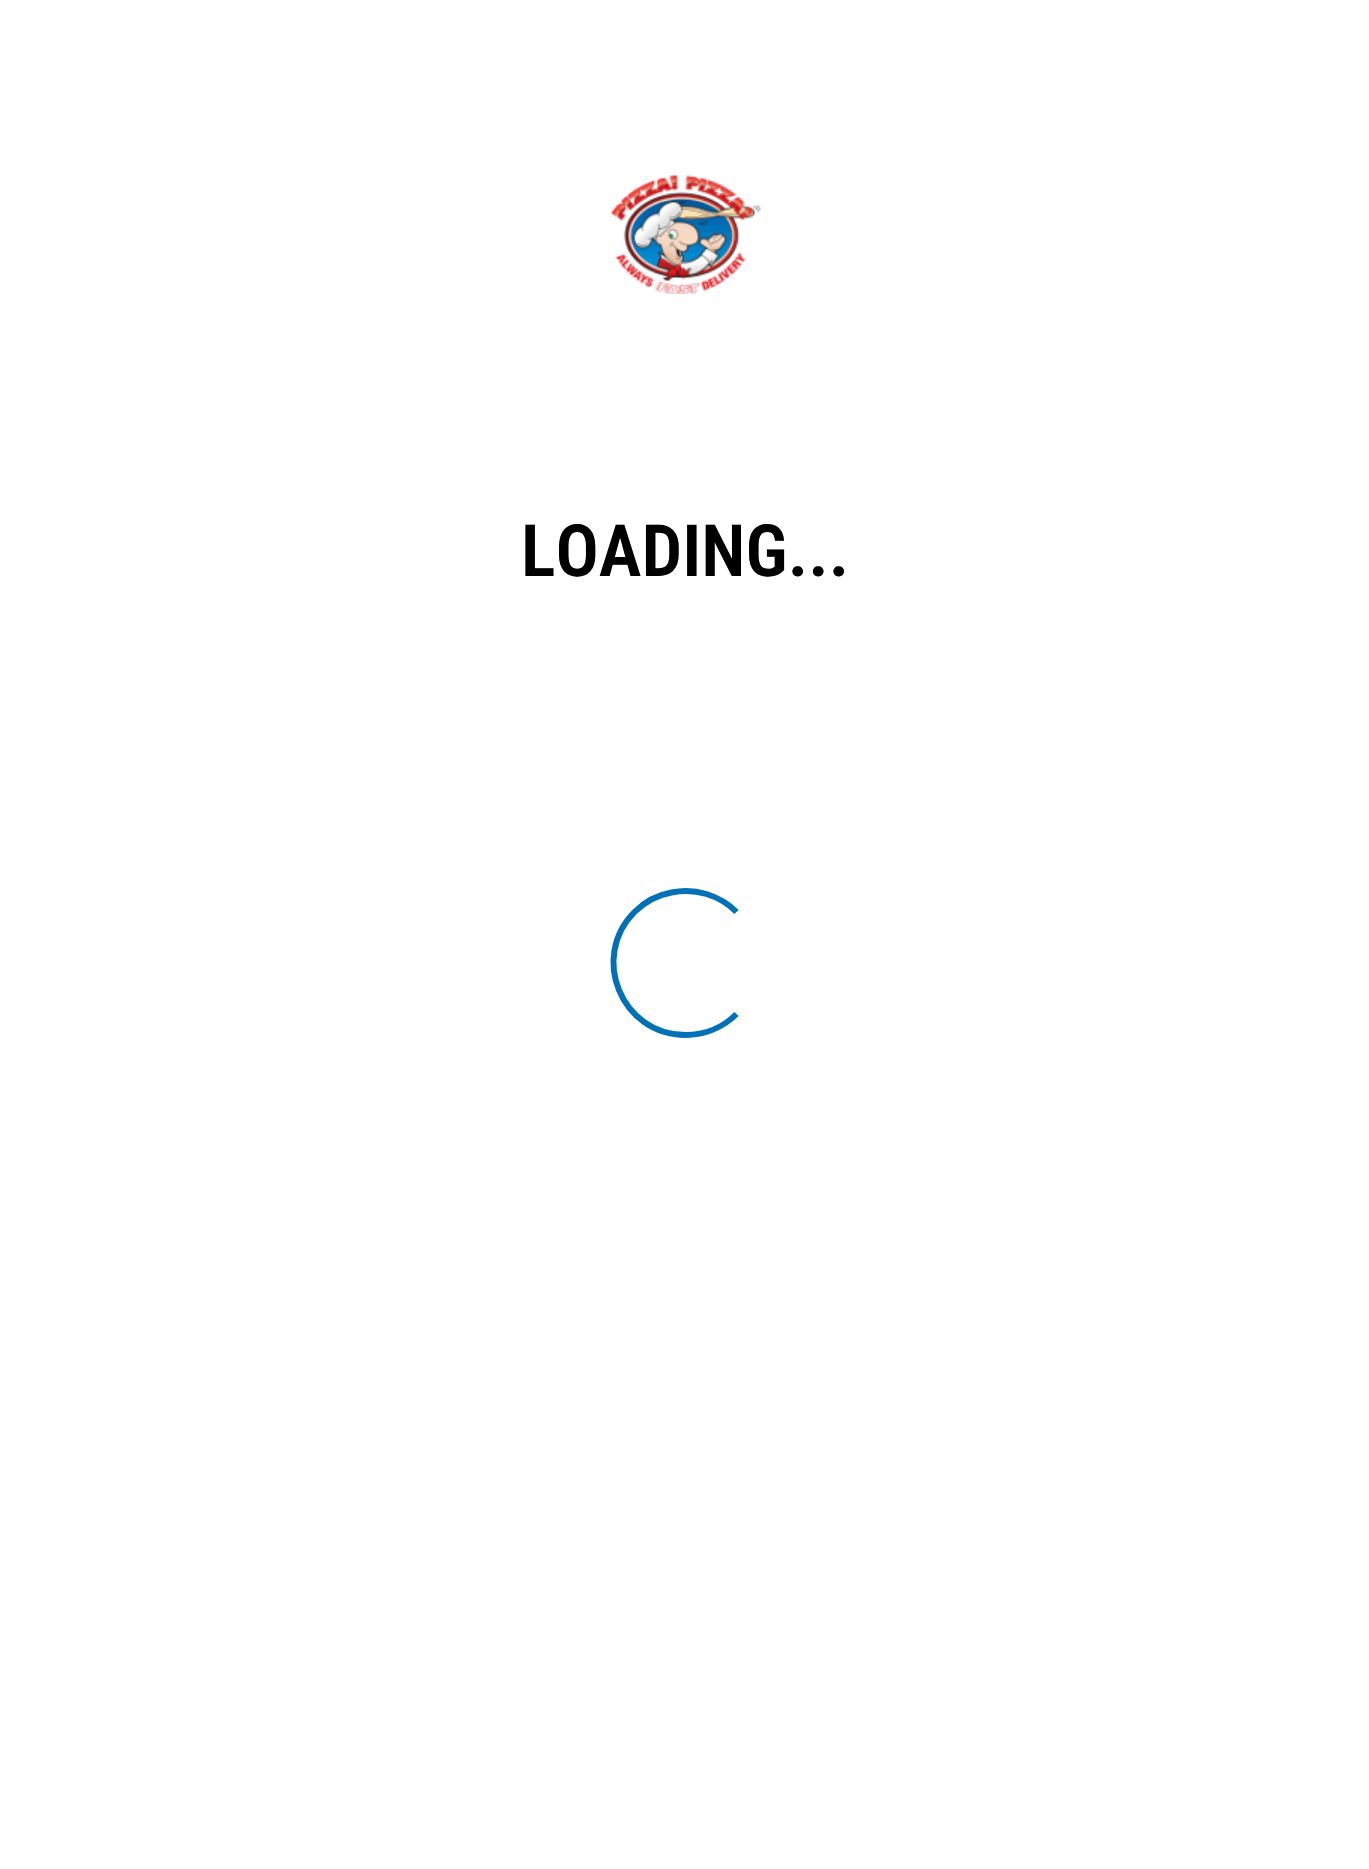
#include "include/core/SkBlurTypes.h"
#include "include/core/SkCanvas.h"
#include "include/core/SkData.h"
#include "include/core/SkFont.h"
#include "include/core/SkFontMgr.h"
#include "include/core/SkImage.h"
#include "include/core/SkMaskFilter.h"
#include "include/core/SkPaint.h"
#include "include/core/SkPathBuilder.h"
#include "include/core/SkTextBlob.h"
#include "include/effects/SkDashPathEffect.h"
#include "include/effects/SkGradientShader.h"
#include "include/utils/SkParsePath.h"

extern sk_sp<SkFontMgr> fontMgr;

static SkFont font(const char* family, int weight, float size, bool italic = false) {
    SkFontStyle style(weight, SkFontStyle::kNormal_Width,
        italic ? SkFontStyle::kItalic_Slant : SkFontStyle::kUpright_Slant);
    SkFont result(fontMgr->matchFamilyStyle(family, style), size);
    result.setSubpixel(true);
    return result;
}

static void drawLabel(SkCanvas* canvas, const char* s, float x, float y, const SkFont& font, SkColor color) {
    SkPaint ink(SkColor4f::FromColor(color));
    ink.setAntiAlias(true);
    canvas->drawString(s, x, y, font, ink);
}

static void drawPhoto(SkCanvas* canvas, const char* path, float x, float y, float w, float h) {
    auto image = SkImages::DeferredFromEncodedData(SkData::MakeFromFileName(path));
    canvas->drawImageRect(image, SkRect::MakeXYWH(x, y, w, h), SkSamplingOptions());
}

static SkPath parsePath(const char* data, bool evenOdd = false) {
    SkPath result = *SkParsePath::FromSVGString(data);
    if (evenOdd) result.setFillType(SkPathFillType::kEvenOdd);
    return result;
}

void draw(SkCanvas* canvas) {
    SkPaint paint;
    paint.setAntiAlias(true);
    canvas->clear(0xFFFFFFFF);
    drawPhoto(canvas, "assets/img1.png", 610, 174, 151, 120);
    SkFont font1 = font("Roboto Condensed", 600, 72);
    drawLabel(canvas, "LOADING...", 521, 576, font1, 0xFF000000);
    paint.setStroke(true);
    paint.setStrokeWidth(6);
    paint.setColor(0xFF0071B7);
    canvas->drawPath(parsePath("M736.5 1014C723 1027.5 704.5 1035 685.5 1035C621.5 1035 589.5 957 634.5 912C644.5 902 657.5 895 671.5 892.5C695 887.5 719.5 895 736.5 912"), paint);
}
